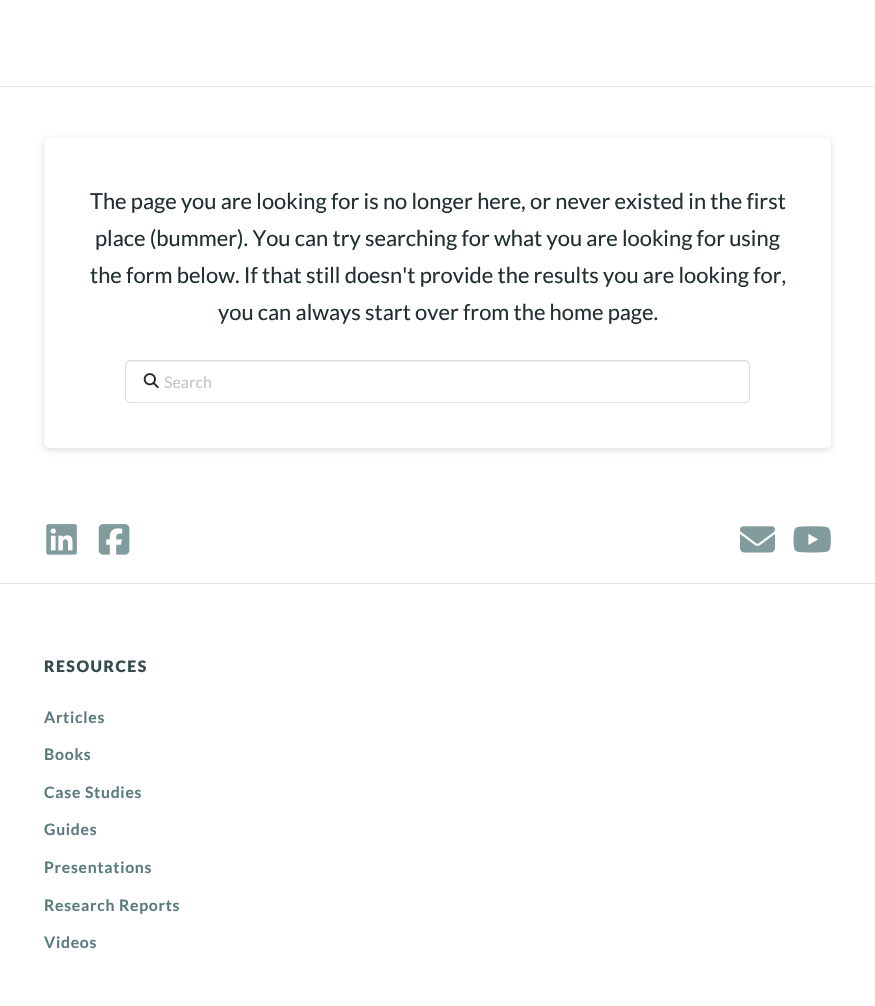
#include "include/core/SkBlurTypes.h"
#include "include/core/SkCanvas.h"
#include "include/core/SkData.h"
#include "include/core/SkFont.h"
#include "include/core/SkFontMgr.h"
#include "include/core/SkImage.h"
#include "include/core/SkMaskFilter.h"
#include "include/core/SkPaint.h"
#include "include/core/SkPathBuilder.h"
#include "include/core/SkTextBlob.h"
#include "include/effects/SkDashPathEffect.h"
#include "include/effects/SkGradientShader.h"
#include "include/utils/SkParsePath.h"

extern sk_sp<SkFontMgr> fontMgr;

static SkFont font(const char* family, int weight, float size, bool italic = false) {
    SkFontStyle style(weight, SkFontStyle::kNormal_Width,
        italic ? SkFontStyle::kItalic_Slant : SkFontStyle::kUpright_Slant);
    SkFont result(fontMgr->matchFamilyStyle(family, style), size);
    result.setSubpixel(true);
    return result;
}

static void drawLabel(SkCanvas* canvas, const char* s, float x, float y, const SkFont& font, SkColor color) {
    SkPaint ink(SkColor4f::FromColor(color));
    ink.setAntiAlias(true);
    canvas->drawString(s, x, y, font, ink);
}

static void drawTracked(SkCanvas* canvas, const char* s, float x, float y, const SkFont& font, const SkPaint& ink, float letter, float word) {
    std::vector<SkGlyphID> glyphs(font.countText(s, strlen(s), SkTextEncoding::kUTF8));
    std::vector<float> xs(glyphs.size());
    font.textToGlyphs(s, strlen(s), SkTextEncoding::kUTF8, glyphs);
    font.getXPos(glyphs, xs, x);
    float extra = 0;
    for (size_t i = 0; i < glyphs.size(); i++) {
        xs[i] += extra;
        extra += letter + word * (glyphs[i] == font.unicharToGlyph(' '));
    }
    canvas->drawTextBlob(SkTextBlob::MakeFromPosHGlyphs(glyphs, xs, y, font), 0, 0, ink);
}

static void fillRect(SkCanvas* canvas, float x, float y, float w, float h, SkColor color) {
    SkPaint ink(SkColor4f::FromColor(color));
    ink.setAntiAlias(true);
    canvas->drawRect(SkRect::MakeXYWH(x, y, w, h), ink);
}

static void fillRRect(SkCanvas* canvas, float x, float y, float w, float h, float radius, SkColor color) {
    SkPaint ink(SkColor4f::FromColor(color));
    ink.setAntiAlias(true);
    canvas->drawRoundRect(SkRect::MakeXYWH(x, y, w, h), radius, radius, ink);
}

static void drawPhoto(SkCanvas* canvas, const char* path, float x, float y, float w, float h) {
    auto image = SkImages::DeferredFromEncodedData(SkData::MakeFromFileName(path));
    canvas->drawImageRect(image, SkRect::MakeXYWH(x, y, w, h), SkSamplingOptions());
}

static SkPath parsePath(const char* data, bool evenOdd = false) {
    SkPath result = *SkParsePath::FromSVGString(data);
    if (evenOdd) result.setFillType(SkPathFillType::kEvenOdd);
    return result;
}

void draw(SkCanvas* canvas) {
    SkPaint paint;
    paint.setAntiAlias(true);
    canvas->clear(0xFFFFFFFF);
    fillRect(canvas, 0, 86, 875, 1, 0xFFDCE5E6);
    paint.setColor(0x21000000);
    paint.setMaskFilter(SkMaskFilter::MakeBlur(kNormal_SkBlurStyle, 3));
    canvas->drawRoundRect(SkRect::MakeXYWH(44, 140, 787, 310), 5, 5, paint);
    paint.setMaskFilter(nullptr);
    fillRRect(canvas, 44, 138, 787, 310, 5, 0xFFFFFFFF);
    SkFont font1 = font("Lato", 400, 21.9f);
    drawLabel(canvas, "The page you are looking for is no longer here, or never existed in the first", 90, 209, font1, 0xFF203031);
    drawLabel(canvas, "place (bummer). You can try searching for what you are looking for using", 95, 246, font1, 0xFF203031);
    drawLabel(canvas, "the form below. If that still doesn't provide the results you are looking for,", 90, 283, font1, 0xFF203031);
    drawLabel(canvas, "you can always start over from the home page.", 218, 320, font1, 0xFF203031);
    paint.setColor(0xFFECECEC);
    canvas->drawPath(parsePath("M130 362H745C747 362 749 364 749 366V365C749 363 747 361 745 361H130C128 361 126 363 126 365V366C126 364 128 362 130 362Z"), paint);
    paint.setStroke(true);
    paint.setStrokeWidth(1);
    paint.setColor(0xFFDDDDDD);
    canvas->drawRoundRect(SkRect::MakeXYWH(125.5f, 360.5f, 624, 42), 4.5f, 4.5f, paint);
    drawPhoto(canvas, "assets/img1.png", 143, 373, 16, 16);
    SkFont font2 = font("Lato", 400, 16);
    drawLabel(canvas, "Search", 164, 388, font2, 0xFFC5C5C5);
    drawPhoto(canvas, "assets/img2.png", 46, 524, 31, 31);
    drawPhoto(canvas, "assets/img3.png", 98, 524, 32, 31);
    drawPhoto(canvas, "assets/img4.png", 740, 526, 35, 27);
    drawPhoto(canvas, "assets/img5.png", 793, 526, 38, 27);
    fillRect(canvas, 0, 583, 875, 1, 0xFFDCE5E6);
    SkFont font3 = font("Lato", 900, 15.75f);
    paint.setStroke(false);
    paint.setColor(0xFF354C4E);
    drawTracked(canvas, "RESOURCES", 44, 672, font3, paint, 1.5f, 0);
    SkFont font4 = font("Lato", 700, 15.75f);
    paint.setColor(0xFF5A7B7E);
    drawTracked(canvas, "Articles", 44, 723, font4, paint, 0.75f, 0);
    drawTracked(canvas, "Books", 44, 760, font4, paint, 0.75f, 0);
    drawTracked(canvas, "Case Studies", 44, 798, font4, paint, 0.75f, 0);
    drawTracked(canvas, "Guides", 44, 835, font4, paint, 0.75f, 0);
    drawTracked(canvas, "Presentations", 44, 873, font4, paint, 0.75f, 0);
    drawTracked(canvas, "Research Reports", 44, 911, font4, paint, 0.75f, 0);
    drawTracked(canvas, "Videos", 44, 948, font4, paint, 0.75f, 0);
}
